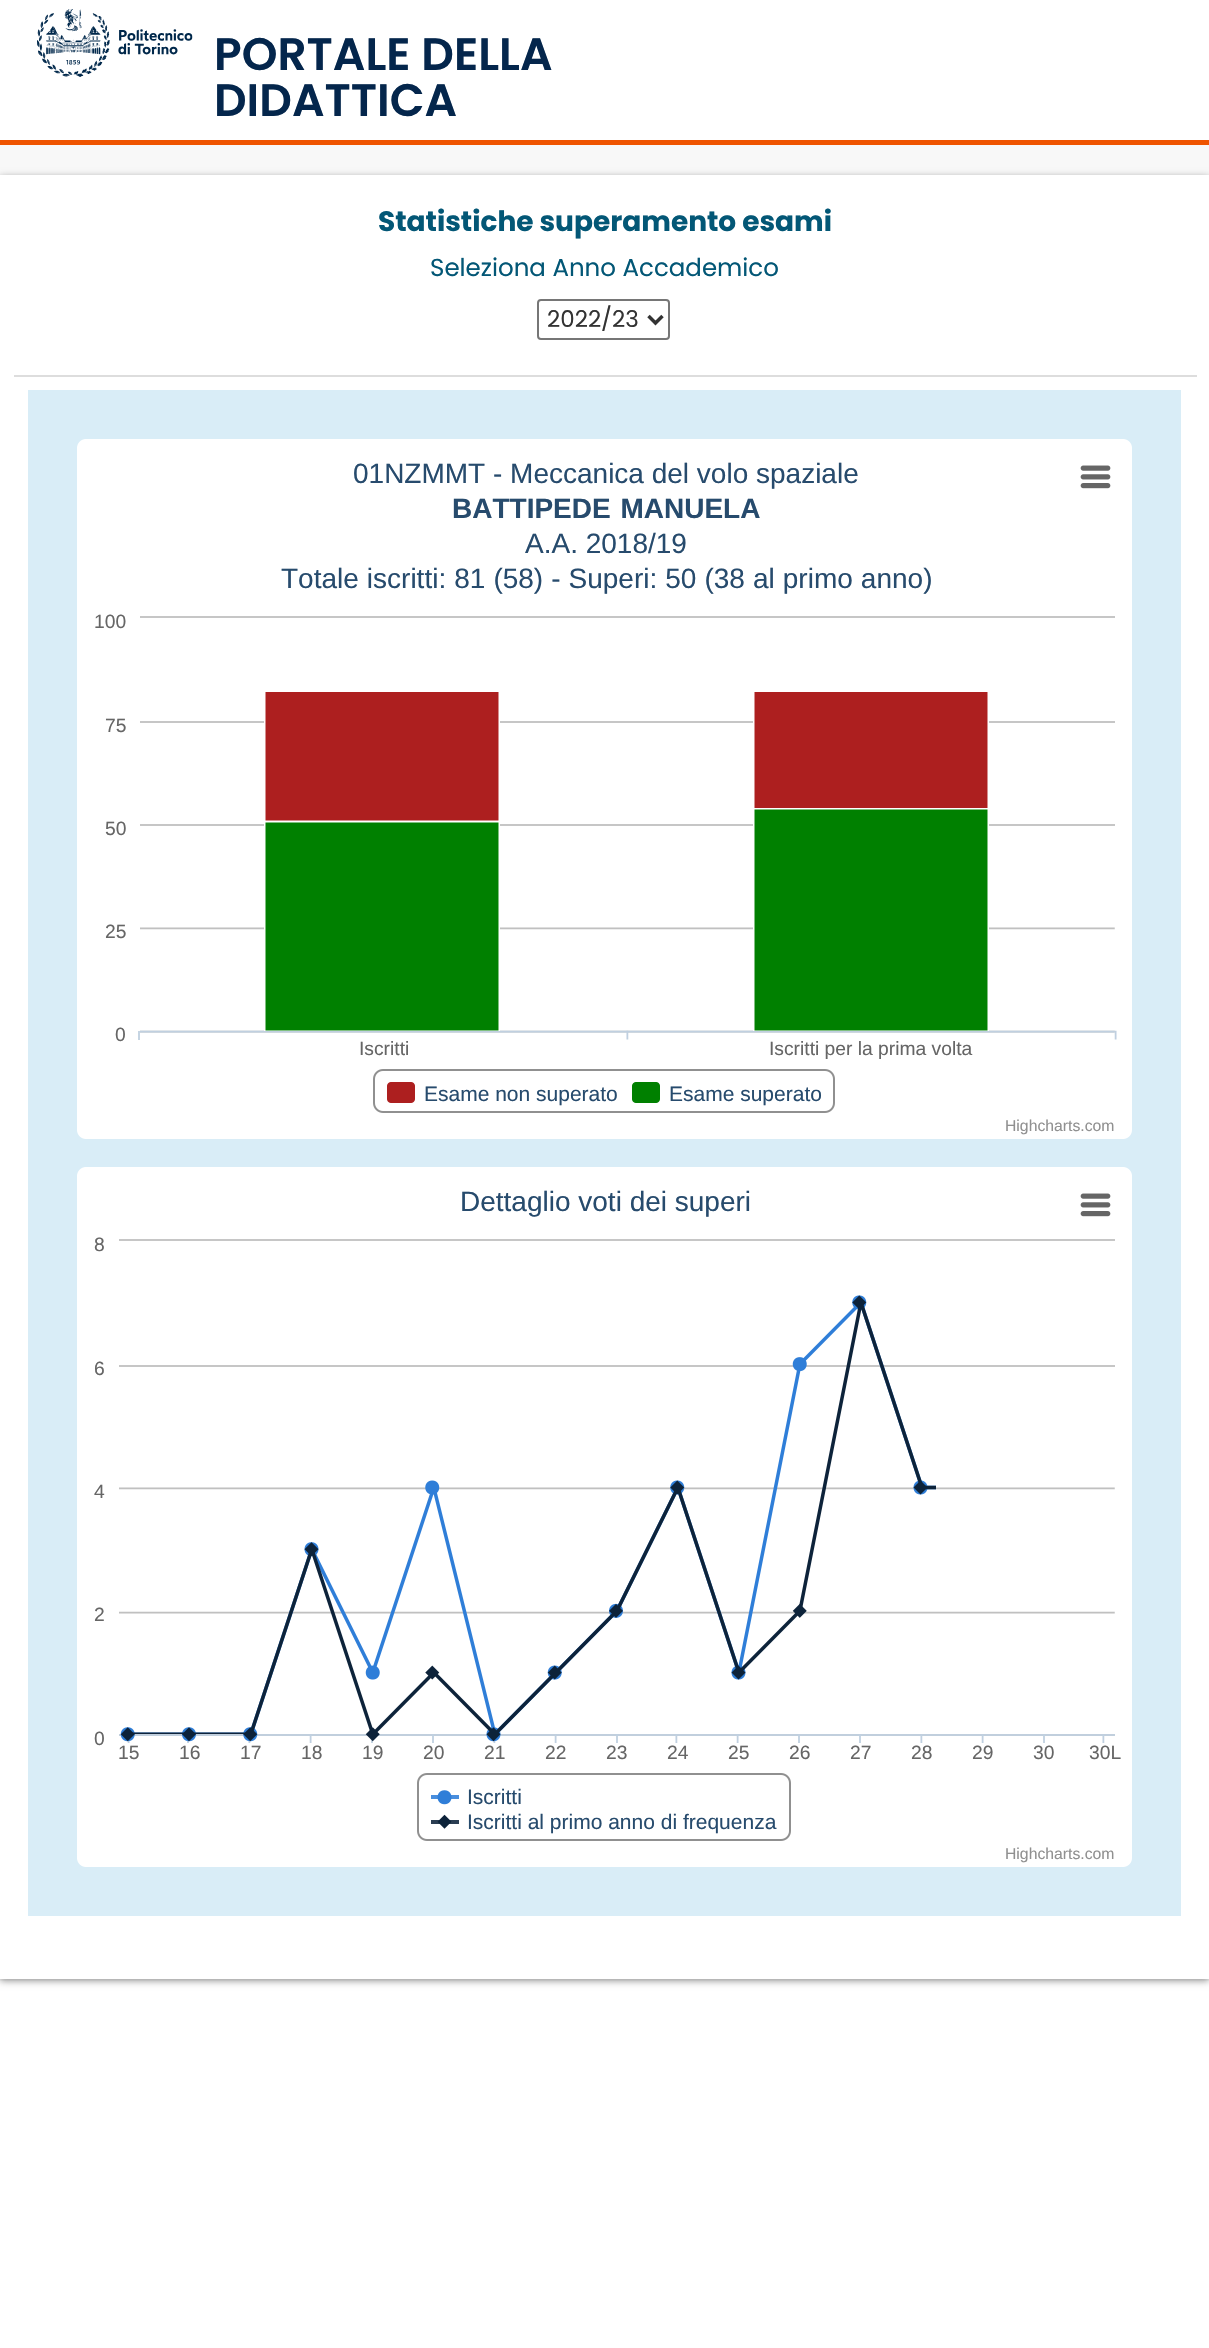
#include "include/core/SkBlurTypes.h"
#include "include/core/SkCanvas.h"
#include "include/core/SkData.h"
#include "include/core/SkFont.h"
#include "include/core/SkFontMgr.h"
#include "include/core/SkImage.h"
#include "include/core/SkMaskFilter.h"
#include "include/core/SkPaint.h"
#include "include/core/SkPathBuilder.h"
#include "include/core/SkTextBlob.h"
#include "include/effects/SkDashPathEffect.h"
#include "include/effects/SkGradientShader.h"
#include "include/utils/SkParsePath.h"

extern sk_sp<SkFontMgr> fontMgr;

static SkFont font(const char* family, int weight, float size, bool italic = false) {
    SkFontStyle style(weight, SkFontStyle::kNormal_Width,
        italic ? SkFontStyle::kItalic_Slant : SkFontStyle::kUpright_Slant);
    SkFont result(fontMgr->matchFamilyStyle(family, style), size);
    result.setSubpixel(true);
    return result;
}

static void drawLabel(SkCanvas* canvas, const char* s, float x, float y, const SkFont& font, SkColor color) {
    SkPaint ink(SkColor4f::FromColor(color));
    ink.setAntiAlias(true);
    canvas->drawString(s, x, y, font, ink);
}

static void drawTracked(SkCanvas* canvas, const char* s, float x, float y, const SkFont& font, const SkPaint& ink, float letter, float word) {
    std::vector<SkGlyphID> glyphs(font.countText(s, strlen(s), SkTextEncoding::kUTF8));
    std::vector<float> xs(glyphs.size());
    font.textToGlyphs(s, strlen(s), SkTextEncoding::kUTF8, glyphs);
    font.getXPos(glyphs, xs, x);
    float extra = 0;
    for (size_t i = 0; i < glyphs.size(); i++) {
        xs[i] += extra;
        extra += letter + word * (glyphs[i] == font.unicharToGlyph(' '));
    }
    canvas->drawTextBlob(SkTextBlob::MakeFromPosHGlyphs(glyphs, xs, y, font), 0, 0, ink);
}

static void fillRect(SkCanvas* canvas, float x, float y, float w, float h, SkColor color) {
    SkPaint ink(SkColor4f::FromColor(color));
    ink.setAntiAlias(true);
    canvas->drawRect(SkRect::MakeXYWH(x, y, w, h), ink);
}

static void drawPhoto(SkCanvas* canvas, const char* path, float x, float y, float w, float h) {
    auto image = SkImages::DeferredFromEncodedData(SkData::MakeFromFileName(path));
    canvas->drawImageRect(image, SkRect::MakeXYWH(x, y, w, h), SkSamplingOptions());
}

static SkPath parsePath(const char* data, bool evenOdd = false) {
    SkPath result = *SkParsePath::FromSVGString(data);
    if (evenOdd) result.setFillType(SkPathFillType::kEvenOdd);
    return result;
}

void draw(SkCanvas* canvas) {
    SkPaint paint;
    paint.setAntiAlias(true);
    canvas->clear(0xFFFFFFFF);
    fillRect(canvas, 0, 140, 1209, 5, 0xFFEF5400);
    drawPhoto(canvas, "assets/img1.png", 37, 9, 156, 68);
    SkFont font1 = font("Poppins", 600, 45.5f);
    drawLabel(canvas, "PORTALE DELLA", 214, 70, font1, 0xFF04264C);
    drawLabel(canvas, "DIDATTICA", 214, 116, font1, 0xFF04264C);
    fillRect(canvas, 0, 145, 1209, 1836, 0xFFF8F8F8);
    paint.setColor(0x66000000);
    paint.setMaskFilter(SkMaskFilter::MakeBlur(kNormal_SkBlurStyle, 3.5f));
    canvas->drawRect(SkRect::MakeXYWH(0, 177, 1209, 1804), paint);
    paint.setMaskFilter(nullptr);
    fillRect(canvas, 0, 175, 1209, 1804, 0xFFFFFFFF);
    SkFont font2 = font("Poppins", 700, 28);
    drawLabel(canvas, "Statistiche superamento esami", 378, 231, font2, 0xFF035776);
    SkFont font3 = font("Poppins", 400, 24.5f);
    drawLabel(canvas, "Seleziona Anno Accademico", 430, 276, font3, 0xFF035776);
    paint.setStroke(true);
    paint.setStrokeWidth(2);
    paint.setColor(0xFF767676);
    canvas->drawRoundRect(SkRect::MakeXYWH(538, 300, 131, 39), 3, 3, paint);
    paint.setStrokeWidth(3.5f);
    paint.setColor(0xFF333333);
    canvas->drawPath(parsePath("M648.5 316L655.5 323L662.5 316"), paint);
    SkFont font4 = font("Poppins", 400, 23);
    drawLabel(canvas, "2022/23", 547, 327, font4, 0xFF333333);
    fillRect(canvas, 14, 375, 1183, 2, 0xFFDDDDDD);
    fillRect(canvas, 28, 390, 1153, 1526, 0xFFD9EDF7);
    drawPhoto(canvas, "assets/img2.png", 77, 439, 1055, 700);
    SkFont font5 = font("Liberation Sans", 400, 28);
    drawLabel(canvas, "01NZMMT - Meccanica del volo spaziale", 353, 483, font5, 0xFF274B6D);
    SkFont font6 = font("Liberation Sans", 700, 28);
    paint.setStroke(false);
    paint.setColor(0xFF274B6D);
    drawTracked(canvas, "BATTIPEDE MANUELA", 452, 518, font6, paint, 0, 2);
    drawLabel(canvas, "A.A. 2018/19", 525, 553, font5, 0xFF274B6D);
    drawTracked(canvas, "Totale iscritti: 81 (58) - Superi: 50 (38 al primo anno)", 281, 588, font5, paint, 0, 0.25f);
    SkFont font7 = font("Liberation Sans", 400, 19.25f);
    drawLabel(canvas, "100", 94, 628, font7, 0xFF666666);
    drawLabel(canvas, "75", 105, 732, font7, 0xFF666666);
    drawLabel(canvas, "50", 105, 835, font7, 0xFF666666);
    drawLabel(canvas, "25", 105, 938, font7, 0xFF666666);
    drawLabel(canvas, "0", 115, 1041, font7, 0xFF666666);
    drawLabel(canvas, "Iscritti", 359, 1055, font7, 0xFF666666);
    drawLabel(canvas, "Iscritti per la prima volta", 769, 1055, font7, 0xFF666666);
    SkFont font8 = font("Liberation Sans", 400, 21);
    drawLabel(canvas, "Esame non superato", 424, 1101, font8, 0xFF274B6D);
    drawLabel(canvas, "Esame superato", 669, 1101, font8, 0xFF274B6D);
    SkFont font9 = font("Liberation Sans", 400, 15.75f);
    drawLabel(canvas, "Highcharts.com", 1005, 1131, font9, 0xFF909090);
    drawPhoto(canvas, "assets/img3.png", 77, 1167, 1055, 700);
    drawLabel(canvas, "Dettaglio voti dei superi", 460, 1211, font5, 0xFF274B6D);
    drawLabel(canvas, "8", 94, 1251, font7, 0xFF666666);
    drawLabel(canvas, "6", 94, 1375, font7, 0xFF666666);
    drawLabel(canvas, "4", 94, 1498, font7, 0xFF666666);
    drawLabel(canvas, "2", 94, 1621, font7, 0xFF666666);
    drawLabel(canvas, "0", 94, 1745, font7, 0xFF666666);
    drawLabel(canvas, "15", 118, 1759, font7, 0xFF666666);
    drawLabel(canvas, "16", 179, 1759, font7, 0xFF666666);
    drawLabel(canvas, "17", 240, 1759, font7, 0xFF666666);
    drawLabel(canvas, "18", 301, 1759, font7, 0xFF666666);
    drawLabel(canvas, "19", 362, 1759, font7, 0xFF666666);
    drawLabel(canvas, "20", 423, 1759, font7, 0xFF666666);
    drawLabel(canvas, "21", 484, 1759, font7, 0xFF666666);
    drawLabel(canvas, "22", 545, 1759, font7, 0xFF666666);
    drawLabel(canvas, "23", 606, 1759, font7, 0xFF666666);
    drawLabel(canvas, "24", 667, 1759, font7, 0xFF666666);
    drawLabel(canvas, "25", 728, 1759, font7, 0xFF666666);
    drawLabel(canvas, "26", 789, 1759, font7, 0xFF666666);
    drawLabel(canvas, "27", 850, 1759, font7, 0xFF666666);
    drawLabel(canvas, "28", 911, 1759, font7, 0xFF666666);
    drawLabel(canvas, "29", 972, 1759, font7, 0xFF666666);
    drawLabel(canvas, "30", 1033, 1759, font7, 0xFF666666);
    drawLabel(canvas, "30L", 1089, 1759, font7, 0xFF666666);
    drawLabel(canvas, "Iscritti", 467, 1804, font8, 0xFF274B6D);
    drawLabel(canvas, "Iscritti al primo anno di frequenza", 467, 1829, font8, 0xFF274B6D);
    drawLabel(canvas, "Highcharts.com", 1005, 1859, font9, 0xFF909090);
}
